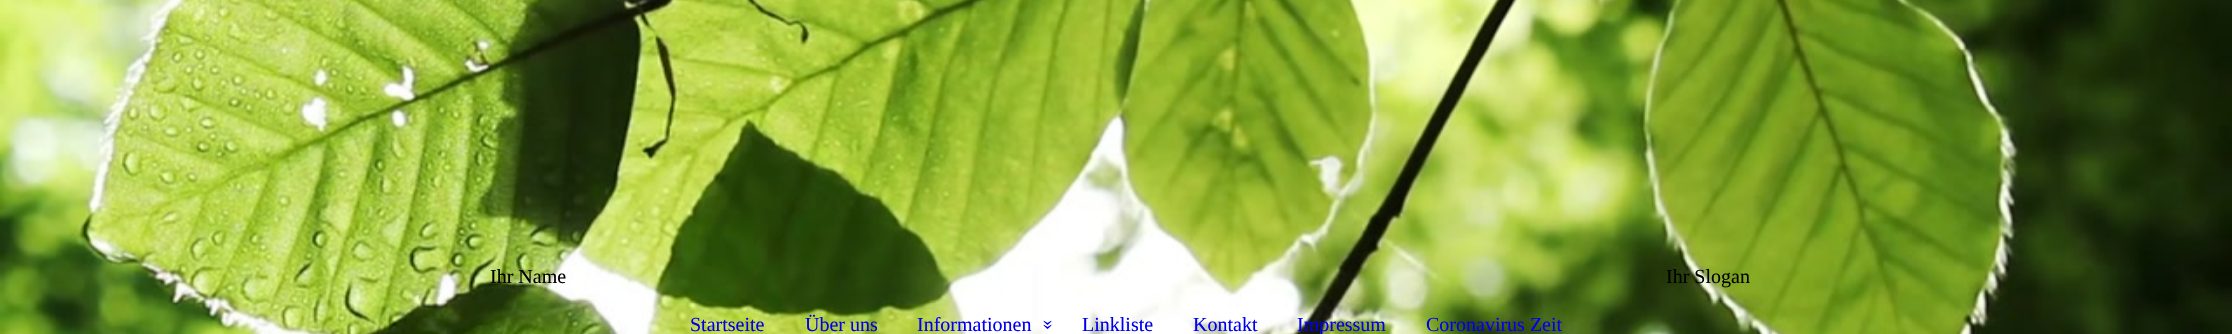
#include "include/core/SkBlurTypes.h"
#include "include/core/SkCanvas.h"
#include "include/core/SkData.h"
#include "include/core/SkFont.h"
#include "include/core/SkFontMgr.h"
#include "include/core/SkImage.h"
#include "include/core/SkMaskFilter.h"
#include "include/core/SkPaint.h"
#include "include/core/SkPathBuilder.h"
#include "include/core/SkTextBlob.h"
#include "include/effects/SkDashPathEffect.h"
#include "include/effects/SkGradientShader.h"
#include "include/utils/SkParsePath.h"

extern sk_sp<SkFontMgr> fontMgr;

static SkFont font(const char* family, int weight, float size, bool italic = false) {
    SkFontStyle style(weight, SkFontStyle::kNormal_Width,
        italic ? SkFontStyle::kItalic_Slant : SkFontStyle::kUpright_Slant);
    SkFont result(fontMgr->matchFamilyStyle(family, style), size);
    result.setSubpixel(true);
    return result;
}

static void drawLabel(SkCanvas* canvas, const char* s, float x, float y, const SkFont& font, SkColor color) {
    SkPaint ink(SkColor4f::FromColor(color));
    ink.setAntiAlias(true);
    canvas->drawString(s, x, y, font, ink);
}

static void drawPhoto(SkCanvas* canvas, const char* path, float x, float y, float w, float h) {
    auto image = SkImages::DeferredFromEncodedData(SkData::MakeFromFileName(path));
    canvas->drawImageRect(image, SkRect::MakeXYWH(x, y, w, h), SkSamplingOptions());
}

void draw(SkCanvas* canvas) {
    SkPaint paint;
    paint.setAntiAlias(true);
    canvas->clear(0xFFFFFFFF);
    drawPhoto(canvas, "assets/img1.png", 0, 0, 2232, 334);
    SkFont font1 = font("Liberation Serif", 400, 20);
    drawLabel(canvas, "Ihr Name", 490, 283, font1, 0xFF000000);
    drawLabel(canvas, "Ihr Slogan", 1666, 283, font1, 0xFF000000);
    drawLabel(canvas, "Startseite", 690, 331, font1, 0xFF0000EE);
    drawLabel(canvas, "Über uns", 805, 331, font1, 0xFF0000EE);
    drawLabel(canvas, "Informationen", 917, 331, font1, 0xFF0000EE);
    canvas->save();
    canvas->rotate(90, 1043, 320);
    drawLabel(canvas, "»", 1043, 320, font1, 0xFF0000EE);
    canvas->restore();
    drawLabel(canvas, "Linkliste", 1082, 331, font1, 0xFF0000EE);
    drawLabel(canvas, "Kontakt", 1193, 331, font1, 0xFF0000EE);
    drawLabel(canvas, "Impressum", 1297, 331, font1, 0xFF0000EE);
    drawLabel(canvas, "Coronavirus Zeit", 1426, 331, font1, 0xFF0000EE);
}
